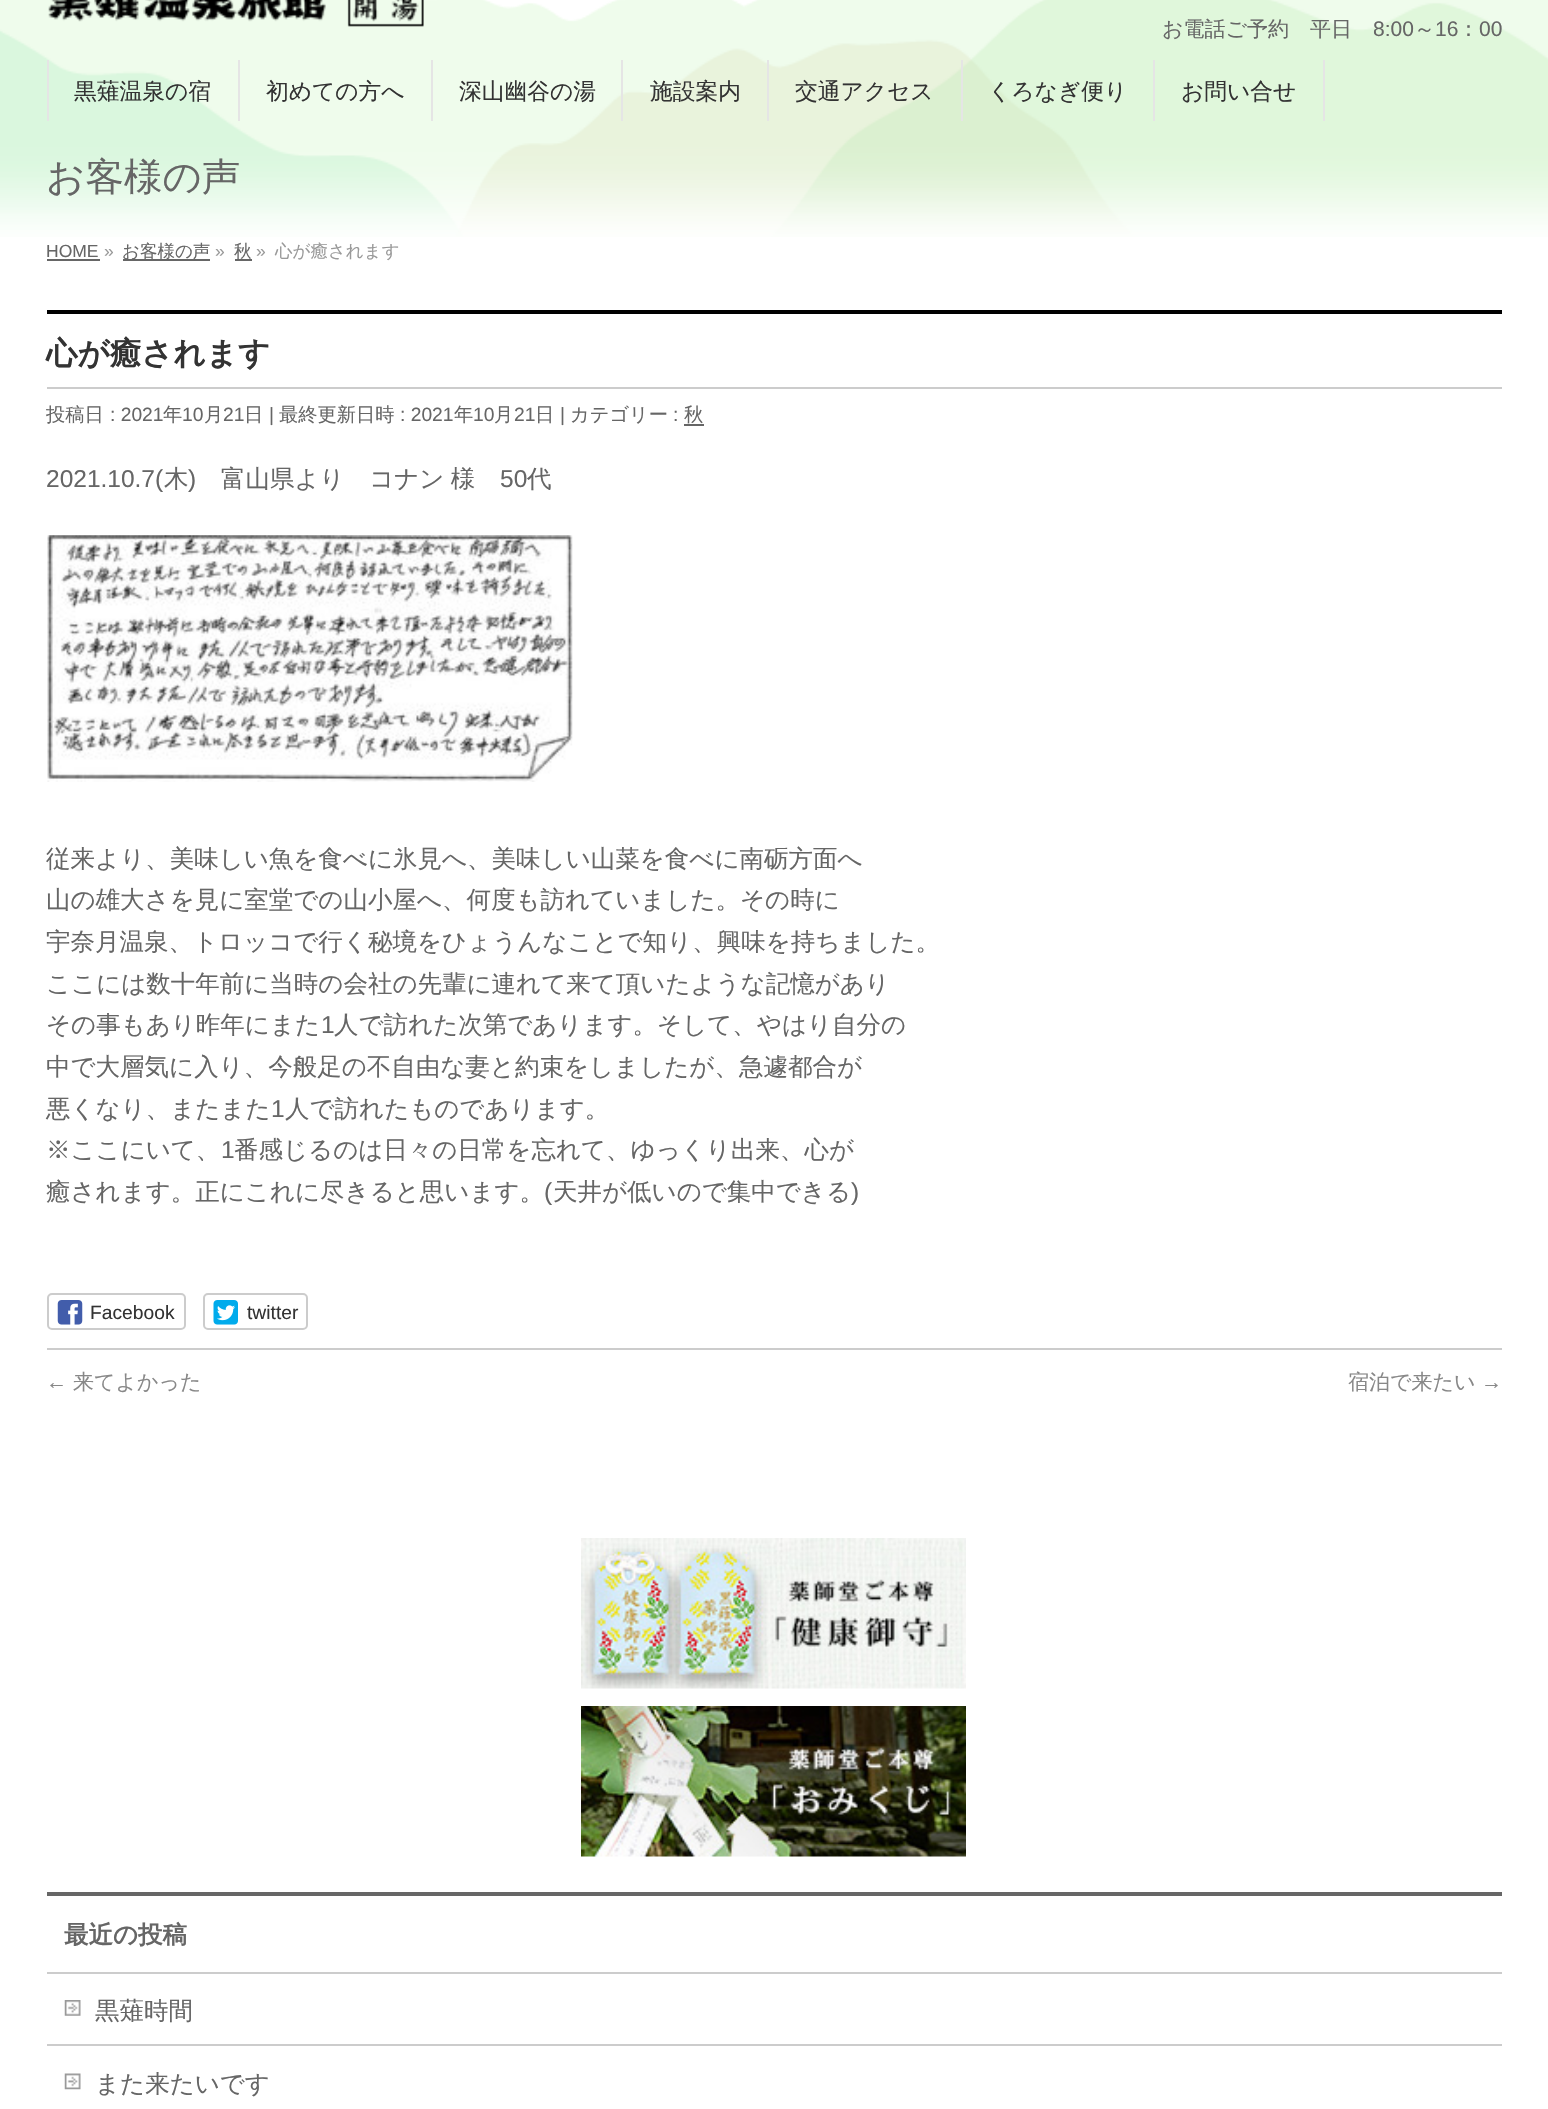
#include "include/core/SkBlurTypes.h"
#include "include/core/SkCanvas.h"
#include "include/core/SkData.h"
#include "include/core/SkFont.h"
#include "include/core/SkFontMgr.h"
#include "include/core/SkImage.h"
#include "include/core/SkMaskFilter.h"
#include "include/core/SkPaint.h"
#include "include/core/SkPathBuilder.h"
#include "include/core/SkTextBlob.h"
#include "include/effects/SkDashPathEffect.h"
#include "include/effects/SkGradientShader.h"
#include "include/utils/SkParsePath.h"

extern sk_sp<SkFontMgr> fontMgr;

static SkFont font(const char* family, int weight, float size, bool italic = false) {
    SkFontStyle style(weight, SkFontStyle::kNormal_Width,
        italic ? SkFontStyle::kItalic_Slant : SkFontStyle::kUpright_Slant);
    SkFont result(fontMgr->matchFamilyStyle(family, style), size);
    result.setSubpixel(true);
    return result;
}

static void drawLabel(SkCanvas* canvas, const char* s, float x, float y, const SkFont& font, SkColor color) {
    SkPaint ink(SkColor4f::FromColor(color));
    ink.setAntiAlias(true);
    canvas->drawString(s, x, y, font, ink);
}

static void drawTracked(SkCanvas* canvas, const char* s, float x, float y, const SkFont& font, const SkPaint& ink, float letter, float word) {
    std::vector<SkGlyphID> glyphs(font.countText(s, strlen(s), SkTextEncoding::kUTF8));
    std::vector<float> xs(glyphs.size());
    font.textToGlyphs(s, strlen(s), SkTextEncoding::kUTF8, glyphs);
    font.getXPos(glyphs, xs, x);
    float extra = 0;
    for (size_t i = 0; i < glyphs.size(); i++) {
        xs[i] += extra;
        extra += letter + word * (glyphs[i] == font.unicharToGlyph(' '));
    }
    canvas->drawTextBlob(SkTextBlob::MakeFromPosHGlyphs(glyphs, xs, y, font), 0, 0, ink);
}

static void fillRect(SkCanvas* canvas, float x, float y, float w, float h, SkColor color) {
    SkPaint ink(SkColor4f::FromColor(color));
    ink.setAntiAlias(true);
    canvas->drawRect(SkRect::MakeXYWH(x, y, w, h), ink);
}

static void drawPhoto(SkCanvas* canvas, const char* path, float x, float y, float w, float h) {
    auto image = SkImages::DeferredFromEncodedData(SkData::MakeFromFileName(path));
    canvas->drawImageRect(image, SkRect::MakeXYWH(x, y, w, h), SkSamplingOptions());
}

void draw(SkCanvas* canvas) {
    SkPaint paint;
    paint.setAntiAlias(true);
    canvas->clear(0xFFFFFFFF);
    drawPhoto(canvas, "assets/img1.png", 0, 0, 1548, 237);
    drawPhoto(canvas, "assets/img2.png", 48, 0, 376, 27);
    SkFont font1 = font("WenQuanYi Zen Hei", 500, 21);
    drawLabel(canvas, "お電話ご予約　平日", 1162, 36, font1, 0xFF666666);
    SkFont font2 = font("Liberation Sans", 400, 21);
    drawLabel(canvas, "8:00", 1373, 36, font2, 0xFF666666);
    drawLabel(canvas, "～", 1414, 36, font1, 0xFF666666);
    drawLabel(canvas, "16", 1435, 36, font2, 0xFF666666);
    drawLabel(canvas, "：", 1458, 36, font1, 0xFF666666);
    drawLabel(canvas, "00", 1479, 36, font2, 0xFF666666);
    fillRect(canvas, 47, 60, 2, 61, 0xFFE5E5E5);
    fillRect(canvas, 238, 60, 2, 61, 0xFFE5E5E5);
    SkFont font3 = font("WenQuanYi Zen Hei", 500, 22.75f);
    drawLabel(canvas, "黒薙温泉の宿", 74, 99, font3, 0xFF333333);
    fillRect(canvas, 431, 60, 2, 61, 0xFFE5E5E5);
    drawLabel(canvas, "初めての方へ", 266, 99, font3, 0xFF333333);
    fillRect(canvas, 621, 60, 2, 61, 0xFFE5E5E5);
    drawLabel(canvas, "深山幽谷の湯", 459, 99, font3, 0xFF333333);
    fillRect(canvas, 767, 60, 2, 61, 0xFFE5E5E5);
    drawLabel(canvas, "施設案内", 650, 99, font3, 0xFF333333);
    fillRect(canvas, 961, 60, 2, 61, 0xFFE5E5E5);
    drawLabel(canvas, "交通アクセス", 795, 99, font3, 0xFF333333);
    fillRect(canvas, 1153, 60, 2, 61, 0xFFE5E5E5);
    drawLabel(canvas, "くろなぎ便り", 988, 99, font3, 0xFF333333);
    fillRect(canvas, 1323, 60, 2, 61, 0xFFE5E5E5);
    drawLabel(canvas, "お問い合せ", 1181, 99, font3, 0xFF333333);
    SkFont font4 = font("WenQuanYi Zen Hei", 500, 38.5f);
    drawLabel(canvas, "お客様の声", 46, 190, font4, 0xFF666666);
    SkFont font5 = font("Liberation Sans", 400, 17.5f);
    drawLabel(canvas, "HOME", 46, 257, font5, 0xFF666666);
    fillRect(canvas, 47, 259, 53, 2, 0xFF666666);
    drawLabel(canvas, "»", 104, 257, font5, 0xFF999999);
    fillRect(canvas, 123, 259, 87, 2, 0xFF666666);
    SkFont font6 = font("WenQuanYi Zen Hei", 500, 17.5f);
    drawLabel(canvas, "お客様の声", 122, 257, font6, 0xFF666666);
    drawLabel(canvas, "»", 215, 257, font5, 0xFF999999);
    fillRect(canvas, 235, 259, 17, 2, 0xFF666666);
    drawLabel(canvas, "秋", 234, 257, font6, 0xFF666666);
    drawLabel(canvas, "»", 256, 257, font5, 0xFF999999);
    drawLabel(canvas, "心が癒されます", 275, 257, font6, 0xFF999999);
    fillRect(canvas, 47, 310, 1455, 4, 0xFF000000);
    fillRect(canvas, 47, 387, 1455, 2, 0xFFCCCCCC);
    SkFont font7 = font("WenQuanYi Zen Hei", 700, 31.5f);
    drawLabel(canvas, "心が癒されます", 46, 364, font7, 0xFF333333);
    SkFont font8 = font("WenQuanYi Zen Hei", 500, 19.25f);
    drawLabel(canvas, "投稿日", 46, 421, font8, 0xFF666666);
    SkFont font9 = font("Liberation Sans", 400, 19.25f);
    drawLabel(canvas, ": 2021", 110, 421, font9, 0xFF666666);
    drawLabel(canvas, "年", 163, 421, font8, 0xFF666666);
    drawLabel(canvas, "10", 182, 421, font9, 0xFF666666);
    drawLabel(canvas, "月", 204, 421, font8, 0xFF666666);
    drawLabel(canvas, "21", 223, 421, font9, 0xFF666666);
    drawLabel(canvas, "日", 244, 421, font8, 0xFF666666);
    drawLabel(canvas, "|", 269, 421, font9, 0xFF666666);
    drawLabel(canvas, "最終更新日時", 279, 421, font8, 0xFF666666);
    drawLabel(canvas, ": 2021", 400, 421, font9, 0xFF666666);
    drawLabel(canvas, "年", 454, 421, font8, 0xFF666666);
    drawLabel(canvas, "10", 473, 421, font9, 0xFF666666);
    drawLabel(canvas, "月", 494, 421, font8, 0xFF666666);
    drawLabel(canvas, "21", 514, 421, font9, 0xFF666666);
    drawLabel(canvas, "日", 535, 421, font8, 0xFF666666);
    drawLabel(canvas, "|", 560, 421, font9, 0xFF666666);
    drawLabel(canvas, "カテゴリー", 570, 421, font8, 0xFF666666);
    drawLabel(canvas, ":", 673, 421, font9, 0xFF666666);
    drawLabel(canvas, "秋", 684, 421, font8, 0xFF666666);
    fillRect(canvas, 684, 424, 20, 2, 0xFF666666);
    SkFont font10 = font("Liberation Sans", 400, 24.5f);
    drawLabel(canvas, "2021.10.7(", 46, 487, font10, 0xFF666666);
    SkFont font11 = font("WenQuanYi Zen Hei", 500, 24.5f);
    drawLabel(canvas, "木", 164, 487, font11, 0xFF666666);
    drawLabel(canvas, ")", 188, 487, font10, 0xFF666666);
    paint.setColor(0xFF666666);
    drawTracked(canvas, "富山県より　コナン 様", 221, 487, font11, paint, 0, -1);
    drawLabel(canvas, "50", 500, 487, font10, 0xFF666666);
    drawLabel(canvas, "代", 527, 487, font11, 0xFF666666);
    drawPhoto(canvas, "assets/img3.png", 47, 535, 526, 247);
    drawLabel(canvas, "従来より、美味しい魚を食べに氷見へ、美味しい山菜を食べに南砺方面へ", 46, 867, font11, 0xFF666666);
    drawLabel(canvas, "山の雄大さを見に室堂での山小屋へ、何度も訪れていました。その時に", 46, 908, font11, 0xFF666666);
    drawLabel(canvas, "宇奈月温泉、トロッコで行く秘境をひょうんなことで知り、興味を持ちました。", 46, 950, font11, 0xFF666666);
    drawLabel(canvas, "ここには数十年前に当時の会社の先輩に連れて来て頂いたような記憶があり", 46, 992, font11, 0xFF666666);
    drawLabel(canvas, "その事もあり昨年にまた", 46, 1033, font11, 0xFF666666);
    drawLabel(canvas, "1", 321, 1033, font10, 0xFF666666);
    drawLabel(canvas, "人で訪れた次第であります。そして、やはり自分の", 334, 1033, font11, 0xFF666666);
    drawLabel(canvas, "中で大層気に入り、今般足の不自由な妻と約束をしましたが、急遽都合が", 46, 1075, font11, 0xFF666666);
    drawLabel(canvas, "悪くなり、またまた", 46, 1117, font11, 0xFF666666);
    drawLabel(canvas, "1", 271, 1117, font10, 0xFF666666);
    drawLabel(canvas, "人で訪れたものであります。", 285, 1117, font11, 0xFF666666);
    drawLabel(canvas, "※ここにいて、", 46, 1158, font11, 0xFF666666);
    drawLabel(canvas, "1", 221, 1158, font10, 0xFF666666);
    drawLabel(canvas, "番感じるのは日々の日常を忘れて、ゆっくり出来、心が", 234, 1158, font11, 0xFF666666);
    drawLabel(canvas, "癒されます。正にこれに尽きると思います。", 46, 1200, font11, 0xFF666666);
    drawLabel(canvas, "(", 544, 1200, font10, 0xFF666666);
    drawLabel(canvas, "天井が低いので集中できる", 553, 1200, font11, 0xFF666666);
    drawLabel(canvas, ")", 851, 1200, font10, 0xFF666666);
    paint.setStroke(true);
    paint.setStrokeWidth(2);
    paint.setColor(0xFFCCCCCC);
    canvas->drawRoundRect(SkRect::MakeXYWH(48, 1294, 137, 35), 4, 4, paint);
    drawPhoto(canvas, "assets/img4.png", 57, 1300, 26, 25);
    drawLabel(canvas, "Facebook", 90, 1319, font9, 0xFF333333);
    canvas->drawRoundRect(SkRect::MakeXYWH(204, 1294, 103, 35), 4, 4, paint);
    drawPhoto(canvas, "assets/img5.png", 213, 1300, 25, 25);
    drawLabel(canvas, "twitter", 247, 1319, font9, 0xFF333333);
    fillRect(canvas, 47, 1348, 1455, 2, 0xFFCCCCCC);
    drawLabel(canvas, "←", 46, 1389, font2, 0xFF888888);
    drawLabel(canvas, "来てよかった", 73, 1389, font1, 0xFF888888);
    drawLabel(canvas, "宿泊で来たい", 1348, 1389, font1, 0xFF888888);
    drawLabel(canvas, "→", 1481, 1389, font2, 0xFF888888);
    drawPhoto(canvas, "assets/img6.png", 581, 1538, 385, 151);
    drawPhoto(canvas, "assets/img7.png", 581, 1706, 385, 151);
    fillRect(canvas, 47, 1892, 1455, 4, 0xFF666666);
    fillRect(canvas, 47, 1972, 1455, 2, 0xFFCCCCCC);
    SkFont font12 = font("WenQuanYi Zen Hei", 700, 24.5f);
    drawLabel(canvas, "最近の投稿", 64, 1943, font12, 0xFF666666);
    fillRect(canvas, 47, 2044, 1455, 2, 0xFFCCCCCC);
    drawPhoto(canvas, "assets/img8.png", 64, 2000, 17, 16);
    drawLabel(canvas, "黒薙時間", 95, 2019, font11, 0xFF666666);
    drawPhoto(canvas, "assets/img9.png", 64, 2073, 17, 17);
    drawLabel(canvas, "また来たいです", 95, 2092, font11, 0xFF666666);
}
